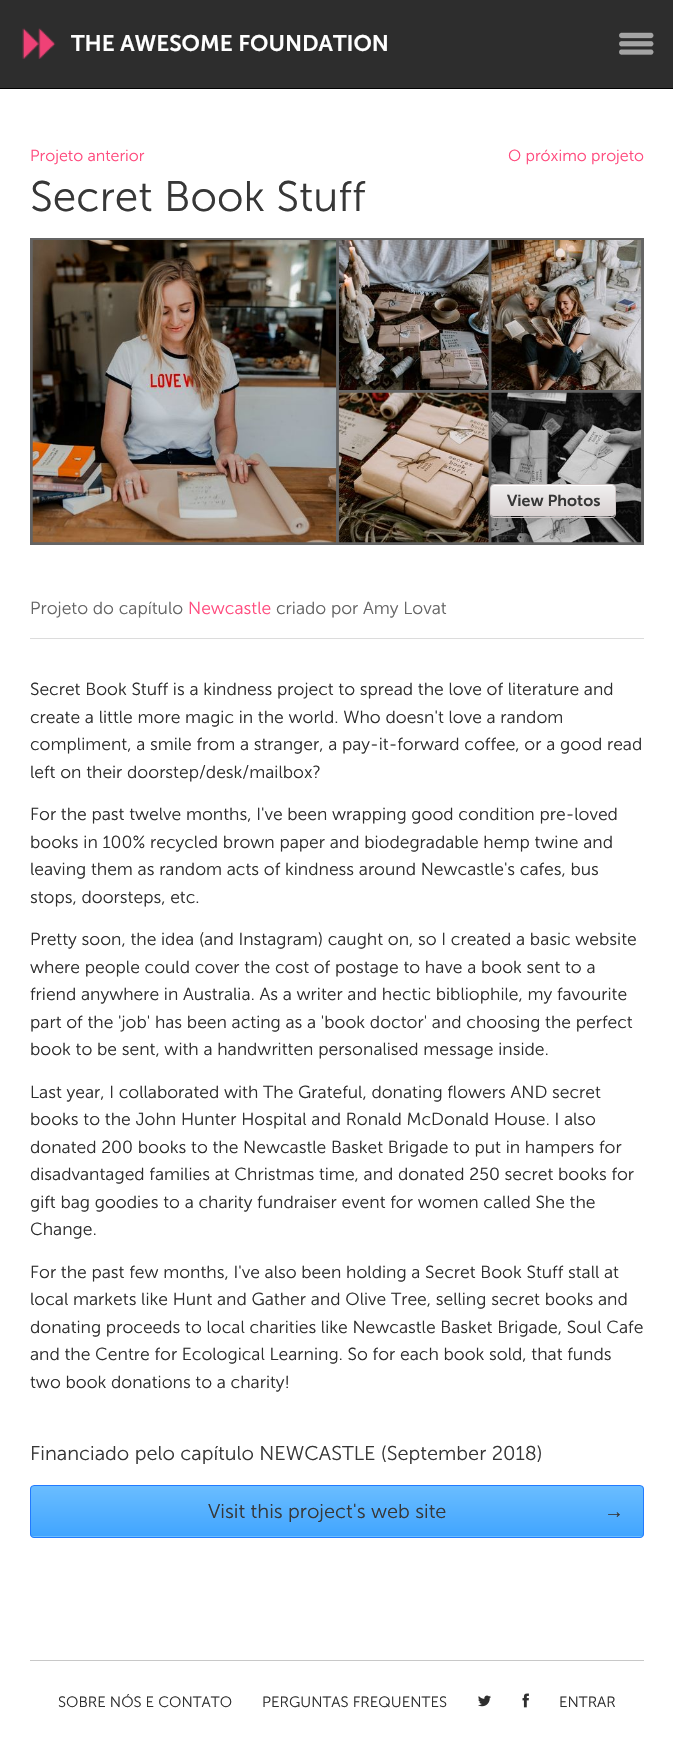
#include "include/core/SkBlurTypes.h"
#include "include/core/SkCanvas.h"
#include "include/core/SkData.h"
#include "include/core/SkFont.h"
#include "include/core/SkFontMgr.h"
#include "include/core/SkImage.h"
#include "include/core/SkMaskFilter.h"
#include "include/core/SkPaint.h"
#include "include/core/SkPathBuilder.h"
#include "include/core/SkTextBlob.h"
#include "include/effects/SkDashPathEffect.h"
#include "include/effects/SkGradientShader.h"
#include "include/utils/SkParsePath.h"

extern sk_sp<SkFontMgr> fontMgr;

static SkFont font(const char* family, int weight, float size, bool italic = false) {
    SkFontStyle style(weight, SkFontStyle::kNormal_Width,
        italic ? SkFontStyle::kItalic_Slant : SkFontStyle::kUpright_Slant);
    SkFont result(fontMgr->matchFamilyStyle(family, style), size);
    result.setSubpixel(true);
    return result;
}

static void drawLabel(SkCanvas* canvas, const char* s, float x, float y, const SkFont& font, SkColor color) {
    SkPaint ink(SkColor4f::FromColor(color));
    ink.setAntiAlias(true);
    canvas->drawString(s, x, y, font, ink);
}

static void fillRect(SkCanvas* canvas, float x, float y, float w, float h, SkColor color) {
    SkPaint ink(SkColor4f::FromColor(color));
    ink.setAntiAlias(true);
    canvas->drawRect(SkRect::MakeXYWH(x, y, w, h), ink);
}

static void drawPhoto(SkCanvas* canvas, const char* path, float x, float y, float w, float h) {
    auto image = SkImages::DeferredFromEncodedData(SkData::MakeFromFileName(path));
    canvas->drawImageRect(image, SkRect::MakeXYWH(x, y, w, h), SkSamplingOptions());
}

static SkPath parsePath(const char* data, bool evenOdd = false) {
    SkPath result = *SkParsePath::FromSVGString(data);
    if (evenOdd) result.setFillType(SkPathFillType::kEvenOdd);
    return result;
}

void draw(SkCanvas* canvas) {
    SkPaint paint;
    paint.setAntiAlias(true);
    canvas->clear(0xFFFFFFFF);
    fillRect(canvas, 0, 0, 673, 88, 0xFF2D2D2D);
    fillRect(canvas, 0, 88, 673, 1, 0xFF000000);
    drawPhoto(canvas, "assets/img1.png", 22, 28, 34, 31);
    SkFont font1 = font("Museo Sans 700", 600, 22.5f);
    drawLabel(canvas, "THE AWESOME FOUNDATION", 71, 51, font1, 0xFFFFFFFF);
    drawPhoto(canvas, "assets/img2.png", 619, 32, 35, 23);
    SkFont font2 = font("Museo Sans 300", 300, 16);
    drawLabel(canvas, "Projeto anterior", 30, 161, font2, 0xFFFF4B7E);
    drawLabel(canvas, "O próximo projeto", 508, 161, font2, 0xFFFF4B7E);
    SkFont font3 = font("Museo Sans 300", 300, 42.5f);
    drawLabel(canvas, "Secret Book Stuff", 30, 211, font3, 0xFF373737);
    fillRect(canvas, 30, 238, 614, 307, 0xFF646464);
    drawPhoto(canvas, "assets/img3.png", 32, 240, 305, 303);
    drawPhoto(canvas, "assets/img4.png", 338, 240, 151, 150);
    drawPhoto(canvas, "assets/img5.png", 491, 240, 151, 150);
    drawPhoto(canvas, "assets/img6.png", 338, 392, 151, 151);
    drawPhoto(canvas, "assets/img7.png", 491, 392, 151, 151);
    {
        const SkColor colors[] = {0xFFF0F0F0, 0xFFD8D0D0};
        const float stops[] = {0, 1};
        const SkPoint ends[] = {{553, 485}, {553, 516}};
        paint.setShader(SkGradientShader::MakeLinear(ends, colors, stops, 2, SkTileMode::kClamp));
        paint.setAlpha(255);
    }
    canvas->drawRoundRect(SkRect::MakeXYWH(491, 485, 124, 31), 2.5f, 2.5f, paint);
    paint.setShader(nullptr);
    paint.setColor(0xFFFFFFFF);
    canvas->drawPath(parsePath("M494 486H612C614 486 615 487 615 489V488C615 486 614 485 612 485H494C492 485 491 486 491 488V489C491 487 492 486 494 486Z"), paint);
    paint.setStroke(true);
    paint.setStrokeWidth(1);
    paint.setColor(0xFFD1C8C8);
    canvas->drawRoundRect(SkRect::MakeXYWH(490.5f, 484.5f, 125, 33), 3.5f, 3.5f, paint);
    SkFont font4 = font("Museo Sans 700", 600, 16);
    drawLabel(canvas, "View Photos", 507, 506, font4, 0xFF373737);
    fillRect(canvas, 30, 638, 614, 1, 0xFFDCDCDC);
    SkFont font5 = font("Museo Sans 300", 300, 17.5f);
    drawLabel(canvas, "Projeto do capítulo", 30, 614, font5, 0xFF646464);
    drawLabel(canvas, "Newcastle", 188, 614, font5, 0xFFFF4B7E);
    drawLabel(canvas, "criado por Amy Lovat", 276, 614, font5, 0xFF646464);
    drawLabel(canvas, "Secret Book Stuff is a kindness project to spread the love of literature and", 30, 695, font5, 0xFF2E2E2E);
    drawLabel(canvas, "create a little more magic in the world. Who doesn't love a random", 30, 723, font5, 0xFF2E2E2E);
    drawLabel(canvas, "compliment, a smile from a stranger, a pay-it-forward coffee, or a good read", 30, 750, font5, 0xFF2E2E2E);
    drawLabel(canvas, "left on their doorstep/desk/mailbox?", 30, 778, font5, 0xFF2E2E2E);
    drawLabel(canvas, "For the past twelve months, I've been wrapping good condition pre-loved", 30, 820, font5, 0xFF2E2E2E);
    drawLabel(canvas, "books in 100% recycled brown paper and biodegradable hemp twine and", 30, 848, font5, 0xFF2E2E2E);
    drawLabel(canvas, "leaving them as random acts of kindness around Newcastle's cafes, bus", 30, 875, font5, 0xFF2E2E2E);
    drawLabel(canvas, "stops, doorsteps, etc.", 30, 903, font5, 0xFF2E2E2E);
    drawLabel(canvas, "Pretty soon, the idea (and Instagram) caught on, so I created a basic website", 30, 945, font5, 0xFF2E2E2E);
    drawLabel(canvas, "where people could cover the cost of postage to have a book sent to a", 30, 973, font5, 0xFF2E2E2E);
    drawLabel(canvas, "friend anywhere in Australia. As a writer and hectic bibliophile, my favourite", 30, 1000, font5, 0xFF2E2E2E);
    drawLabel(canvas, "part of the 'job' has been acting as a 'book doctor' and choosing the perfect", 30, 1028, font5, 0xFF2E2E2E);
    drawLabel(canvas, "book to be sent, with a handwritten personalised message inside.", 30, 1055, font5, 0xFF2E2E2E);
    drawLabel(canvas, "Last year, I collaborated with The Grateful, donating flowers AND secret", 30, 1098, font5, 0xFF2E2E2E);
    drawLabel(canvas, "books to the John Hunter Hospital and Ronald McDonald House. I also", 30, 1125, font5, 0xFF2E2E2E);
    drawLabel(canvas, "donated 200 books to the Newcastle Basket Brigade to put in hampers for", 30, 1153, font5, 0xFF2E2E2E);
    drawLabel(canvas, "disadvantaged families at Christmas time, and donated 250 secret books for", 30, 1180, font5, 0xFF2E2E2E);
    drawLabel(canvas, "gift bag goodies to a charity fundraiser event for women called She the", 30, 1208, font5, 0xFF2E2E2E);
    drawLabel(canvas, "Change.", 30, 1235, font5, 0xFF2E2E2E);
    drawLabel(canvas, "For the past few months, I've also been holding a Secret Book Stuff stall at", 30, 1278, font5, 0xFF2E2E2E);
    drawLabel(canvas, "local markets like Hunt and Gather and Olive Tree, selling secret books and", 30, 1305, font5, 0xFF2E2E2E);
    drawLabel(canvas, "donating proceeds to local charities like Newcastle Basket Brigade, Soul Cafe", 30, 1333, font5, 0xFF2E2E2E);
    drawLabel(canvas, "and the Centre for Ecological Learning. So for each book sold, that funds", 30, 1360, font5, 0xFF2E2E2E);
    drawLabel(canvas, "two book donations to a charity!", 30, 1388, font5, 0xFF2E2E2E);
    SkFont font6 = font("Museo Sans 300", 300, 20);
    drawLabel(canvas, "Financiado pelo capítulo NEWCASTLE (September 2018)", 30, 1460, font6, 0xFF373737);
    canvas->save();
    canvas->clipPath(parsePath("M34 1485H640C642 1485 644 1487 644 1489V1534C644 1536 642 1538 640 1538H34C32 1538 30 1536 30 1534V1489C30 1487 32 1485 34 1485Z"), true);
    paint.setStroke(false);
    {
        const SkColor colors[] = {0xFF6ABDFF, 0xFF41A5FF};
        const float stops[] = {0, 1};
        const SkPoint ends[] = {{337, 1486}, {337, 1536}};
        paint.setShader(SkGradientShader::MakeLinear(ends, colors, stops, 2, SkTileMode::kClamp));
        paint.setAlpha(255);
    }
    canvas->drawRect(SkRect::MakeXYWH(30, 1486, 614, 50), paint);
    {
        const SkColor colors[] = {0xFF6ABDFF, 0xFF41A5FF};
        const float stops[] = {0, 1};
        const SkPoint ends[] = {{337, 1536}, {337, 1586}};
        paint.setShader(SkGradientShader::MakeLinear(ends, colors, stops, 2, SkTileMode::kClamp));
        paint.setAlpha(255);
    }
    canvas->drawRect(SkRect::MakeXYWH(30, 1536, 614, 2), paint);
    canvas->restore();
    paint.setStroke(true);
    paint.setShader(nullptr);
    paint.setColor(0xFF227AFF);
    canvas->drawRoundRect(SkRect::MakeXYWH(30.5f, 1485.5f, 613, 52), 3.5f, 3.5f, paint);
    drawLabel(canvas, "Visit this project's web site", 208, 1518, font6, 0xFF373737);
    SkFont font7 = font("Liberation Sans", 400, 20);
    drawLabel(canvas, "→", 604, 1518, font7, 0xFF373737);
    fillRect(canvas, 30, 1660, 614, 1, 0xFFC8C8C8);
    SkFont font8 = font("Museo Sans 300", 300, 15);
    drawLabel(canvas, "SOBRE NÓS E CONTATO", 58, 1707, font8, 0xFF2E2E2E);
    drawLabel(canvas, "PERGUNTAS FREQUENTES", 262, 1707, font8, 0xFF2E2E2E);
    drawPhoto(canvas, "assets/img8.png", 478, 1695, 13, 12);
    drawPhoto(canvas, "assets/img9.png", 522, 1693, 7, 15);
    drawLabel(canvas, "ENTRAR", 559, 1707, font8, 0xFF2E2E2E);
}
